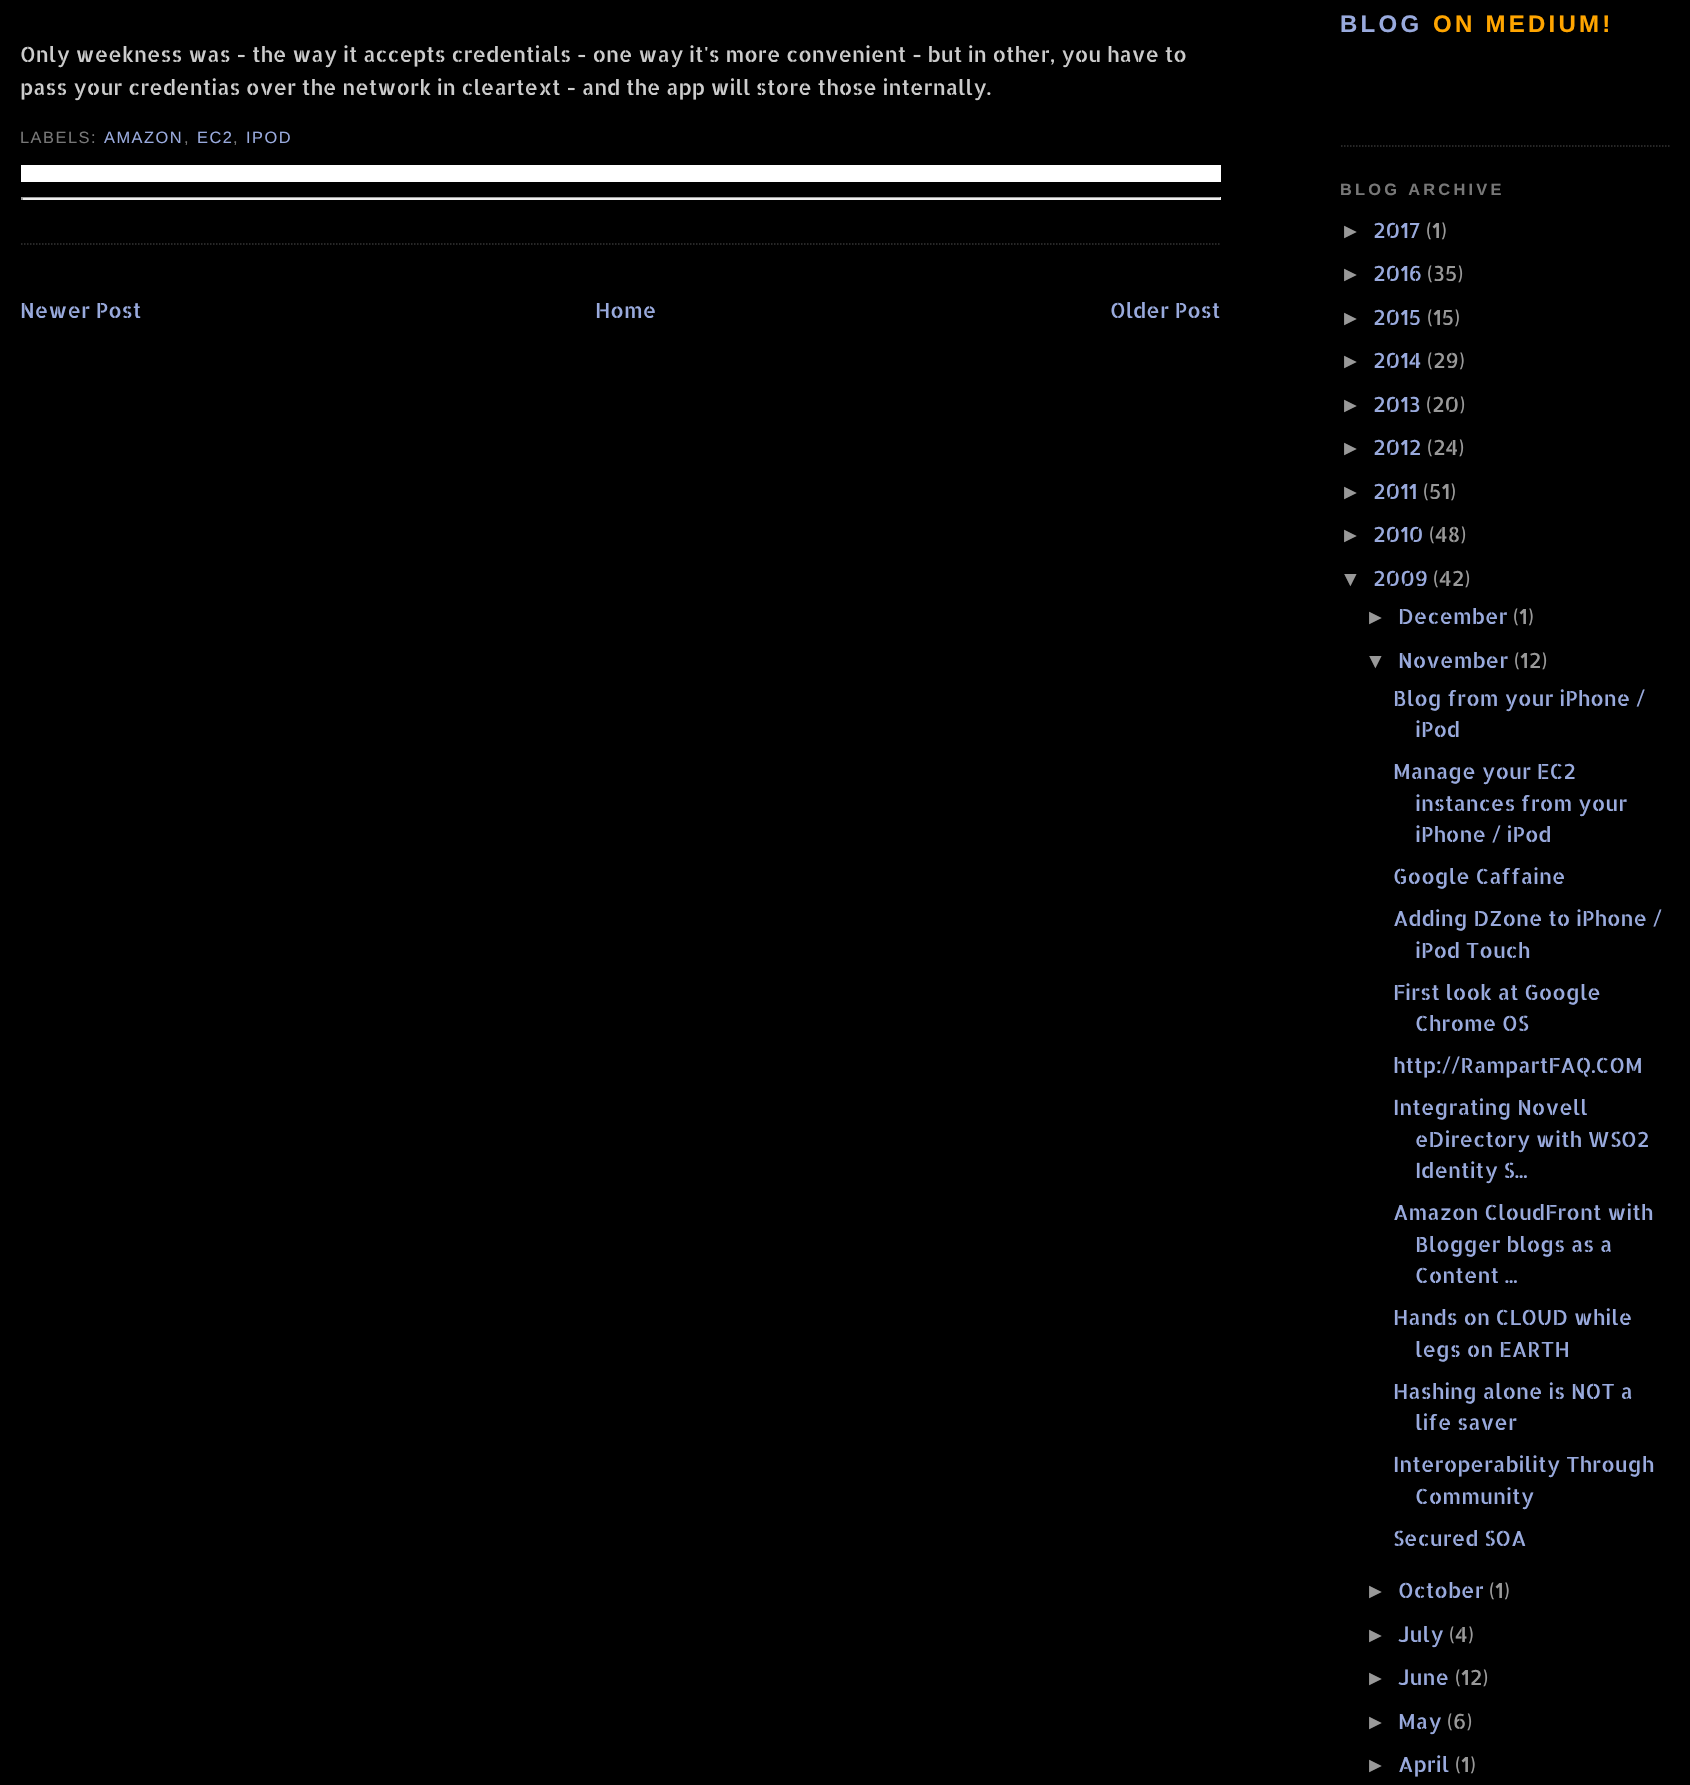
#include "include/core/SkBlurTypes.h"
#include "include/core/SkCanvas.h"
#include "include/core/SkData.h"
#include "include/core/SkFont.h"
#include "include/core/SkFontMgr.h"
#include "include/core/SkImage.h"
#include "include/core/SkMaskFilter.h"
#include "include/core/SkPaint.h"
#include "include/core/SkPathBuilder.h"
#include "include/core/SkTextBlob.h"
#include "include/effects/SkDashPathEffect.h"
#include "include/effects/SkGradientShader.h"
#include "include/utils/SkParsePath.h"

extern sk_sp<SkFontMgr> fontMgr;

static SkFont font(const char* family, int weight, float size, bool italic = false) {
    SkFontStyle style(weight, SkFontStyle::kNormal_Width,
        italic ? SkFontStyle::kItalic_Slant : SkFontStyle::kUpright_Slant);
    SkFont result(fontMgr->matchFamilyStyle(family, style), size);
    result.setSubpixel(true);
    return result;
}

static void drawLabel(SkCanvas* canvas, const char* s, float x, float y, const SkFont& font, SkColor color) {
    SkPaint ink(SkColor4f::FromColor(color));
    ink.setAntiAlias(true);
    canvas->drawString(s, x, y, font, ink);
}

static void drawTracked(SkCanvas* canvas, const char* s, float x, float y, const SkFont& font, const SkPaint& ink, float letter, float word) {
    std::vector<SkGlyphID> glyphs(font.countText(s, strlen(s), SkTextEncoding::kUTF8));
    std::vector<float> xs(glyphs.size());
    font.textToGlyphs(s, strlen(s), SkTextEncoding::kUTF8, glyphs);
    font.getXPos(glyphs, xs, x);
    float extra = 0;
    for (size_t i = 0; i < glyphs.size(); i++) {
        xs[i] += extra;
        extra += letter + word * (glyphs[i] == font.unicharToGlyph(' '));
    }
    canvas->drawTextBlob(SkTextBlob::MakeFromPosHGlyphs(glyphs, xs, y, font), 0, 0, ink);
}

static void fillRect(SkCanvas* canvas, float x, float y, float w, float h, SkColor color) {
    SkPaint ink(SkColor4f::FromColor(color));
    ink.setAntiAlias(true);
    canvas->drawRect(SkRect::MakeXYWH(x, y, w, h), ink);
}

static SkPath parsePath(const char* data, bool evenOdd = false) {
    SkPath result = *SkParsePath::FromSVGString(data);
    if (evenOdd) result.setFillType(SkPathFillType::kEvenOdd);
    return result;
}

void draw(SkCanvas* canvas) {
    SkPaint paint;
    paint.setAntiAlias(true);
    canvas->clear(0xFF000000);
    paint.setStroke(true);
    paint.setStrokeWidth(1.5f);
    paint.setColor(0xFF333333);
    paint.setPathEffect(SkDashPathEffect::Make({{1.5f, 1.5f}}, 0));
    canvas->drawPath(parsePath("M21 244H1221"), paint);
    paint.setPathEffect(nullptr);
    SkFont font1 = font("Allerta Stencil", 400, 21);
    drawLabel(canvas, "Only weekness was - the way it accepts credentials - one way it's more convenient - but in other, you have to", 20, 62, font1, 0xFFCCCCCC);
    drawLabel(canvas, "pass your credentias over the network in cleartext - and the app will store those internally.", 20, 95, font1, 0xFFCCCCCC);
    SkFont font2 = font("Liberation Sans", 400, 16.4f);
    paint.setStroke(false);
    paint.setColor(0xFF777777);
    drawTracked(canvas, "LABELS:", 20, 143, font2, paint, 1.5f, 0);
    paint.setColor(0xFF99AADD);
    drawTracked(canvas, "AMAZON", 104, 143, font2, paint, 1.5f, 0);
    paint.setColor(0xFF777777);
    drawTracked(canvas, ",", 184, 143, font2, paint, 1.5f, 0);
    paint.setColor(0xFF99AADD);
    drawTracked(canvas, "EC2", 197, 143, font2, paint, 1.5f, 0);
    paint.setColor(0xFF777777);
    drawTracked(canvas, ",", 233, 143, font2, paint, 1.5f, 0);
    paint.setColor(0xFF99AADD);
    drawTracked(canvas, "IPOD", 246, 143, font2, paint, 1.5f, 0);
    fillRect(canvas, 21, 165, 1200, 17, 0xFFFFFFFF);
    fillRect(canvas, 21, 197, 1200, 1, 0xFF9F9F9F);
    fillRect(canvas, 1220, 197, 1, 3, 0xFFEEEEEE);
    fillRect(canvas, 21, 198, 1200, 2, 0xFFEEEEEE);
    fillRect(canvas, 21, 197, 2, 3, 0xFF9F9F9F);
    drawLabel(canvas, "Newer Post", 20, 318, font1, 0xFF99AADD);
    drawLabel(canvas, "Home", 595, 318, font1, 0xFF99AADD);
    drawLabel(canvas, "Older Post", 1110, 318, font1, 0xFF99AADD);
    paint.setStroke(true);
    paint.setColor(0xFF333333);
    paint.setPathEffect(SkDashPathEffect::Make({{1.5f, 1.5f}}, 0));
    canvas->drawPath(parsePath("M1341 146H1671"), paint);
    paint.setPathEffect(nullptr);
    SkFont font3 = font("Liberation Sans", 700, 24);
    paint.setStroke(false);
    paint.setColor(0xFF99AADD);
    drawTracked(canvas, "BLOG", 1340, 32, font3, paint, 3.25f, 0);
    paint.setColor(0xFFFFA500);
    drawTracked(canvas, "ON MEDIUM!", 1433, 32, font3, paint, 3.25f, 0);
    SkFont font4 = font("Liberation Sans", 700, 16.4f);
    paint.setColor(0xFF777777);
    drawTracked(canvas, "BLOG ARCHIVE", 1340, 195, font4, paint, 3.25f, 0);
    SkFont font5 = font("Liberation Sans", 400, 21);
    drawLabel(canvas, "►", 1340, 238, font5, 0xFF999999);
    drawLabel(canvas, "2017", 1373, 238, font1, 0xFF99AADD);
    drawLabel(canvas, "(1)", 1426, 238, font1, 0xFF999999);
    drawLabel(canvas, "►", 1340, 281, font5, 0xFF999999);
    drawLabel(canvas, "2016", 1373, 281, font1, 0xFF99AADD);
    drawLabel(canvas, "(35)", 1427, 281, font1, 0xFF999999);
    drawLabel(canvas, "►", 1340, 325, font5, 0xFF999999);
    drawLabel(canvas, "2015", 1373, 325, font1, 0xFF99AADD);
    drawLabel(canvas, "(15)", 1427, 325, font1, 0xFF999999);
    drawLabel(canvas, "►", 1340, 368, font5, 0xFF999999);
    drawLabel(canvas, "2014", 1373, 368, font1, 0xFF99AADD);
    drawLabel(canvas, "(29)", 1427, 368, font1, 0xFF999999);
    drawLabel(canvas, "►", 1340, 412, font5, 0xFF999999);
    drawLabel(canvas, "2013", 1373, 412, font1, 0xFF99AADD);
    drawLabel(canvas, "(20)", 1426, 412, font1, 0xFF999999);
    drawLabel(canvas, "►", 1340, 455, font5, 0xFF999999);
    drawLabel(canvas, "2012", 1373, 455, font1, 0xFF99AADD);
    drawLabel(canvas, "(24)", 1427, 455, font1, 0xFF999999);
    drawLabel(canvas, "►", 1340, 499, font5, 0xFF999999);
    drawLabel(canvas, "2011", 1373, 499, font1, 0xFF99AADD);
    drawLabel(canvas, "(51)", 1423, 499, font1, 0xFF999999);
    drawLabel(canvas, "►", 1340, 542, font5, 0xFF999999);
    drawLabel(canvas, "2010", 1373, 542, font1, 0xFF99AADD);
    drawLabel(canvas, "(48)", 1429, 542, font1, 0xFF999999);
    drawLabel(canvas, "▼", 1340, 586, font5, 0xFF999999);
    drawLabel(canvas, "2009", 1373, 586, font1, 0xFF99AADD);
    drawLabel(canvas, "(42)", 1433, 586, font1, 0xFF999999);
    drawLabel(canvas, "►", 1365, 624, font5, 0xFF999999);
    drawLabel(canvas, "December", 1398, 624, font1, 0xFF99AADD);
    drawLabel(canvas, "(1)", 1513, 624, font1, 0xFF999999);
    drawLabel(canvas, "▼", 1365, 668, font5, 0xFF999999);
    drawLabel(canvas, "November", 1398, 668, font1, 0xFF99AADD);
    drawLabel(canvas, "(12)", 1514, 668, font1, 0xFF999999);
    drawLabel(canvas, "Blog from your iPhone /", 1393, 706, font1, 0xFF99AADD);
    drawLabel(canvas, "iPod", 1415, 737, font1, 0xFF99AADD);
    drawLabel(canvas, "Manage your EC2", 1393, 779, font1, 0xFF99AADD);
    drawLabel(canvas, "instances from your", 1415, 811, font1, 0xFF99AADD);
    drawLabel(canvas, "iPhone / iPod", 1415, 842, font1, 0xFF99AADD);
    drawLabel(canvas, "Google Caffaine", 1393, 884, font1, 0xFF99AADD);
    drawLabel(canvas, "Adding DZone to iPhone /", 1393, 926, font1, 0xFF99AADD);
    drawLabel(canvas, "iPod Touch", 1415, 958, font1, 0xFF99AADD);
    drawLabel(canvas, "First look at Google", 1393, 1000, font1, 0xFF99AADD);
    drawLabel(canvas, "Chrome OS", 1415, 1031, font1, 0xFF99AADD);
    drawLabel(canvas, "http://RampartFAQ.COM", 1393, 1073, font1, 0xFF99AADD);
    drawLabel(canvas, "Integrating Novell", 1393, 1115, font1, 0xFF99AADD);
    drawLabel(canvas, "eDirectory with WSO2", 1415, 1147, font1, 0xFF99AADD);
    drawLabel(canvas, "Identity S...", 1415, 1178, font1, 0xFF99AADD);
    drawLabel(canvas, "Amazon CloudFront with", 1393, 1220, font1, 0xFF99AADD);
    drawLabel(canvas, "Blogger blogs as a", 1415, 1252, font1, 0xFF99AADD);
    drawLabel(canvas, "Content ...", 1415, 1283, font1, 0xFF99AADD);
    drawLabel(canvas, "Hands on CLOUD while", 1393, 1325, font1, 0xFF99AADD);
    drawLabel(canvas, "legs on EARTH", 1415, 1357, font1, 0xFF99AADD);
    drawLabel(canvas, "Hashing alone is NOT a", 1393, 1399, font1, 0xFF99AADD);
    drawLabel(canvas, "life saver", 1415, 1430, font1, 0xFF99AADD);
    drawLabel(canvas, "Interoperability Through", 1393, 1472, font1, 0xFF99AADD);
    drawLabel(canvas, "Community", 1415, 1504, font1, 0xFF99AADD);
    drawLabel(canvas, "Secured SOA", 1393, 1546, font1, 0xFF99AADD);
    drawLabel(canvas, "►", 1365, 1598, font5, 0xFF999999);
    drawLabel(canvas, "October", 1398, 1598, font1, 0xFF99AADD);
    drawLabel(canvas, "(1)", 1489, 1598, font1, 0xFF999999);
    drawLabel(canvas, "►", 1365, 1642, font5, 0xFF999999);
    drawLabel(canvas, "July", 1398, 1642, font1, 0xFF99AADD);
    drawLabel(canvas, "(4)", 1449, 1642, font1, 0xFF999999);
    drawLabel(canvas, "►", 1365, 1685, font5, 0xFF999999);
    drawLabel(canvas, "June", 1398, 1685, font1, 0xFF99AADD);
    drawLabel(canvas, "(12)", 1455, 1685, font1, 0xFF999999);
    drawLabel(canvas, "►", 1365, 1729, font5, 0xFF999999);
    drawLabel(canvas, "May", 1398, 1729, font1, 0xFF99AADD);
    drawLabel(canvas, "(6)", 1447, 1729, font1, 0xFF999999);
    drawLabel(canvas, "►", 1365, 1772, font5, 0xFF999999);
    drawLabel(canvas, "April", 1398, 1772, font1, 0xFF99AADD);
    drawLabel(canvas, "(1)", 1455, 1772, font1, 0xFF999999);
}
